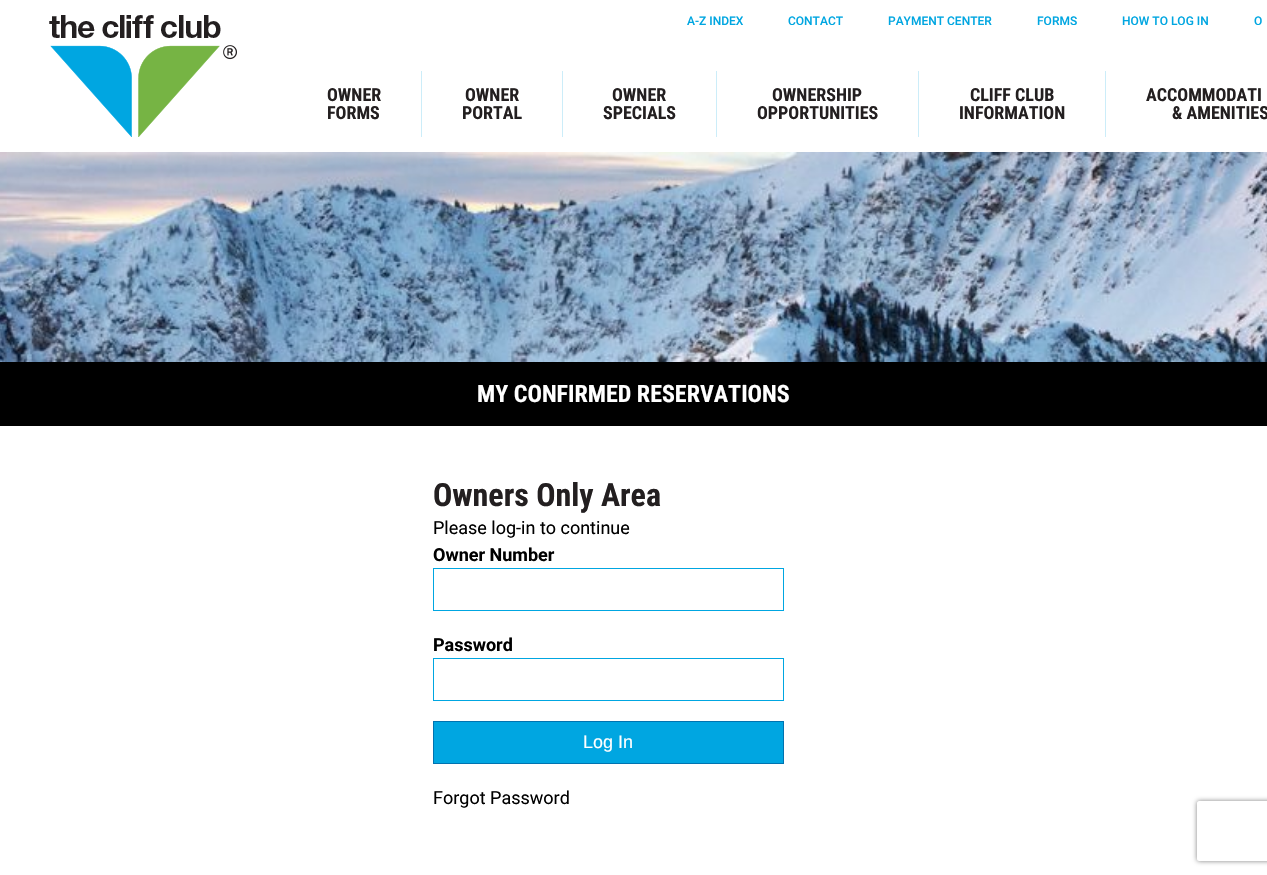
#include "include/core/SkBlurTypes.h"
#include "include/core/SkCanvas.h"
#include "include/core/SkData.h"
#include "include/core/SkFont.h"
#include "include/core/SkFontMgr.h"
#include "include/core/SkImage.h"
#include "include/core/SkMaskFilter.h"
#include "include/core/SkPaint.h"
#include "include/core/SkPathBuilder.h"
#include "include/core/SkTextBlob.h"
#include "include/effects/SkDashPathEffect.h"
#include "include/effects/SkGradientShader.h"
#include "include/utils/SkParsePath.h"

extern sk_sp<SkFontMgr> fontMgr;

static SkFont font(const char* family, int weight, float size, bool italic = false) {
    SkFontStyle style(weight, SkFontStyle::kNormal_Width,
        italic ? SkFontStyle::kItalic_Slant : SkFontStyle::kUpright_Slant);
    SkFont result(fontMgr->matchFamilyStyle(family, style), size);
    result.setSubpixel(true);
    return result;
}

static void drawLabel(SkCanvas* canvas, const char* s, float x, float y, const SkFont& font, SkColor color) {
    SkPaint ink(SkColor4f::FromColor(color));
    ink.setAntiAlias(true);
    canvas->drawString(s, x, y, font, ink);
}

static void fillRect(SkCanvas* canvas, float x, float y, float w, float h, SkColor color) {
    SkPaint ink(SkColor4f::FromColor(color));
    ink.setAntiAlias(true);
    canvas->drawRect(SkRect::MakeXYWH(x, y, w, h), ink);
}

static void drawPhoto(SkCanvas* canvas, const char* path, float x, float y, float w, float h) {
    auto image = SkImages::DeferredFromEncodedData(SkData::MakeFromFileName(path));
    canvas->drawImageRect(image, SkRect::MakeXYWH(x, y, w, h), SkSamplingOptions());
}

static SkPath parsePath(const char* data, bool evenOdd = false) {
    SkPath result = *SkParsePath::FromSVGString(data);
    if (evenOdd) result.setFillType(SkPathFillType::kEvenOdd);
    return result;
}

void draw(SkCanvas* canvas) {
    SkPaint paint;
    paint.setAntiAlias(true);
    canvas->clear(0xFFFFFFFF);
    drawPhoto(canvas, "assets/img1.png", 49, 15, 188, 122);
    SkFont font1 = font("Roboto", 500, 12);
    drawLabel(canvas, "A-Z INDEX", 687, 25, font1, 0xFF00A6E1);
    drawLabel(canvas, "CONTACT", 788, 25, font1, 0xFF00A6E1);
    drawLabel(canvas, "PAYMENT CENTER", 888, 25, font1, 0xFF00A6E1);
    drawLabel(canvas, "FORMS", 1037, 25, font1, 0xFF00A6E1);
    drawLabel(canvas, "HOW TO LOG IN", 1122, 25, font1, 0xFF00A6E1);
    drawLabel(canvas, "O", 1254, 25, font1, 0xFF00A6E1);
    fillRect(canvas, 421, 71, 1, 66, 0xFFCCEDF9);
    SkFont font2 = font("Roboto Condensed", 700, 18);
    drawLabel(canvas, "OWNER", 327, 101, font2, 0xFF231F20);
    drawLabel(canvas, "FORMS", 327, 119, font2, 0xFF231F20);
    fillRect(canvas, 562, 71, 1, 66, 0xFFCCEDF9);
    drawLabel(canvas, "OWNER", 465, 101, font2, 0xFF231F20);
    drawLabel(canvas, "PORTAL", 462, 119, font2, 0xFF231F20);
    fillRect(canvas, 716, 71, 1, 66, 0xFFCCEDF9);
    drawLabel(canvas, "OWNER", 612, 101, font2, 0xFF231F20);
    drawLabel(canvas, "SPECIALS", 603, 119, font2, 0xFF231F20);
    fillRect(canvas, 918, 71, 1, 66, 0xFFCCEDF9);
    drawLabel(canvas, "OWNERSHIP", 772, 101, font2, 0xFF231F20);
    drawLabel(canvas, "OPPORTUNITIES", 757, 119, font2, 0xFF231F20);
    fillRect(canvas, 1105, 71, 1, 66, 0xFFCCEDF9);
    drawLabel(canvas, "CLIFF CLUB", 970, 101, font2, 0xFF231F20);
    drawLabel(canvas, "INFORMATION", 959, 119, font2, 0xFF231F20);
    drawLabel(canvas, "ACCOMMODATI", 1146, 101, font2, 0xFF231F20);
    drawLabel(canvas, "& AMENITIES", 1172, 119, font2, 0xFF231F20);
    drawPhoto(canvas, "assets/img2.png", 0, 152, 1267, 210);
    fillRect(canvas, 0, 362, 1267, 64, 0xFF000000);
    SkFont font3 = font("Roboto Condensed", 700, 24);
    drawLabel(canvas, "MY CONFIRMED RESERVATIONS", 477, 402, font3, 0xFFFFFFFF);
    SkFont font4 = font("Roboto Condensed", 700, 32);
    drawLabel(canvas, "Owners Only Area", 433, 506, font4, 0xFF231F20);
    SkFont font5 = font("Roboto", 400, 18);
    drawLabel(canvas, "Please log-in to continue", 433, 534, font5, 0xFF000000);
    SkFont font6 = font("Roboto", 700, 18);
    drawLabel(canvas, "Owner Number", 433, 561, font6, 0xFF000000);
    paint.setStroke(true);
    paint.setStrokeWidth(1);
    paint.setColor(0xFF00A6E1);
    canvas->drawRect(SkRect::MakeXYWH(433.5f, 568.5f, 350, 42), paint);
    drawLabel(canvas, "Password", 433, 651, font6, 0xFF000000);
    canvas->drawRect(SkRect::MakeXYWH(433.5f, 658.5f, 350, 42), paint);
    paint.setStroke(false);
    canvas->drawRect(SkRect::MakeXYWH(433.5f, 721.5f, 350, 42), paint);
    paint.setStroke(true);
    paint.setColor(0xFF0073B0);
    canvas->drawRect(SkRect::MakeXYWH(433.5f, 721.5f, 350, 42), paint);
    SkFont font7 = font("Liberation Sans", 400, 18);
    drawLabel(canvas, "Log In", 583, 748, font7, 0xFFFFFFFF);
    drawLabel(canvas, "Forgot Password", 433, 804, font5, 0xFF000000);
    canvas->save();
    canvas->clipPath(parsePath("M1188 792H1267V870H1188ZM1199 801H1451C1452 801 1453 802 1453 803V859C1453 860 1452 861 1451 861H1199C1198 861 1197 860 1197 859V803C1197 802 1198 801 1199 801Z", true), true);
    paint.setStroke(false);
    paint.setColor(0xFF808080);
    paint.setMaskFilter(SkMaskFilter::MakeBlur(kNormal_SkBlurStyle, 2.5f));
    canvas->drawRoundRect(SkRect::MakeXYWH(1197, 801, 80, 60), 2, 2, paint);
    paint.setMaskFilter(nullptr);
    canvas->restore();
}
